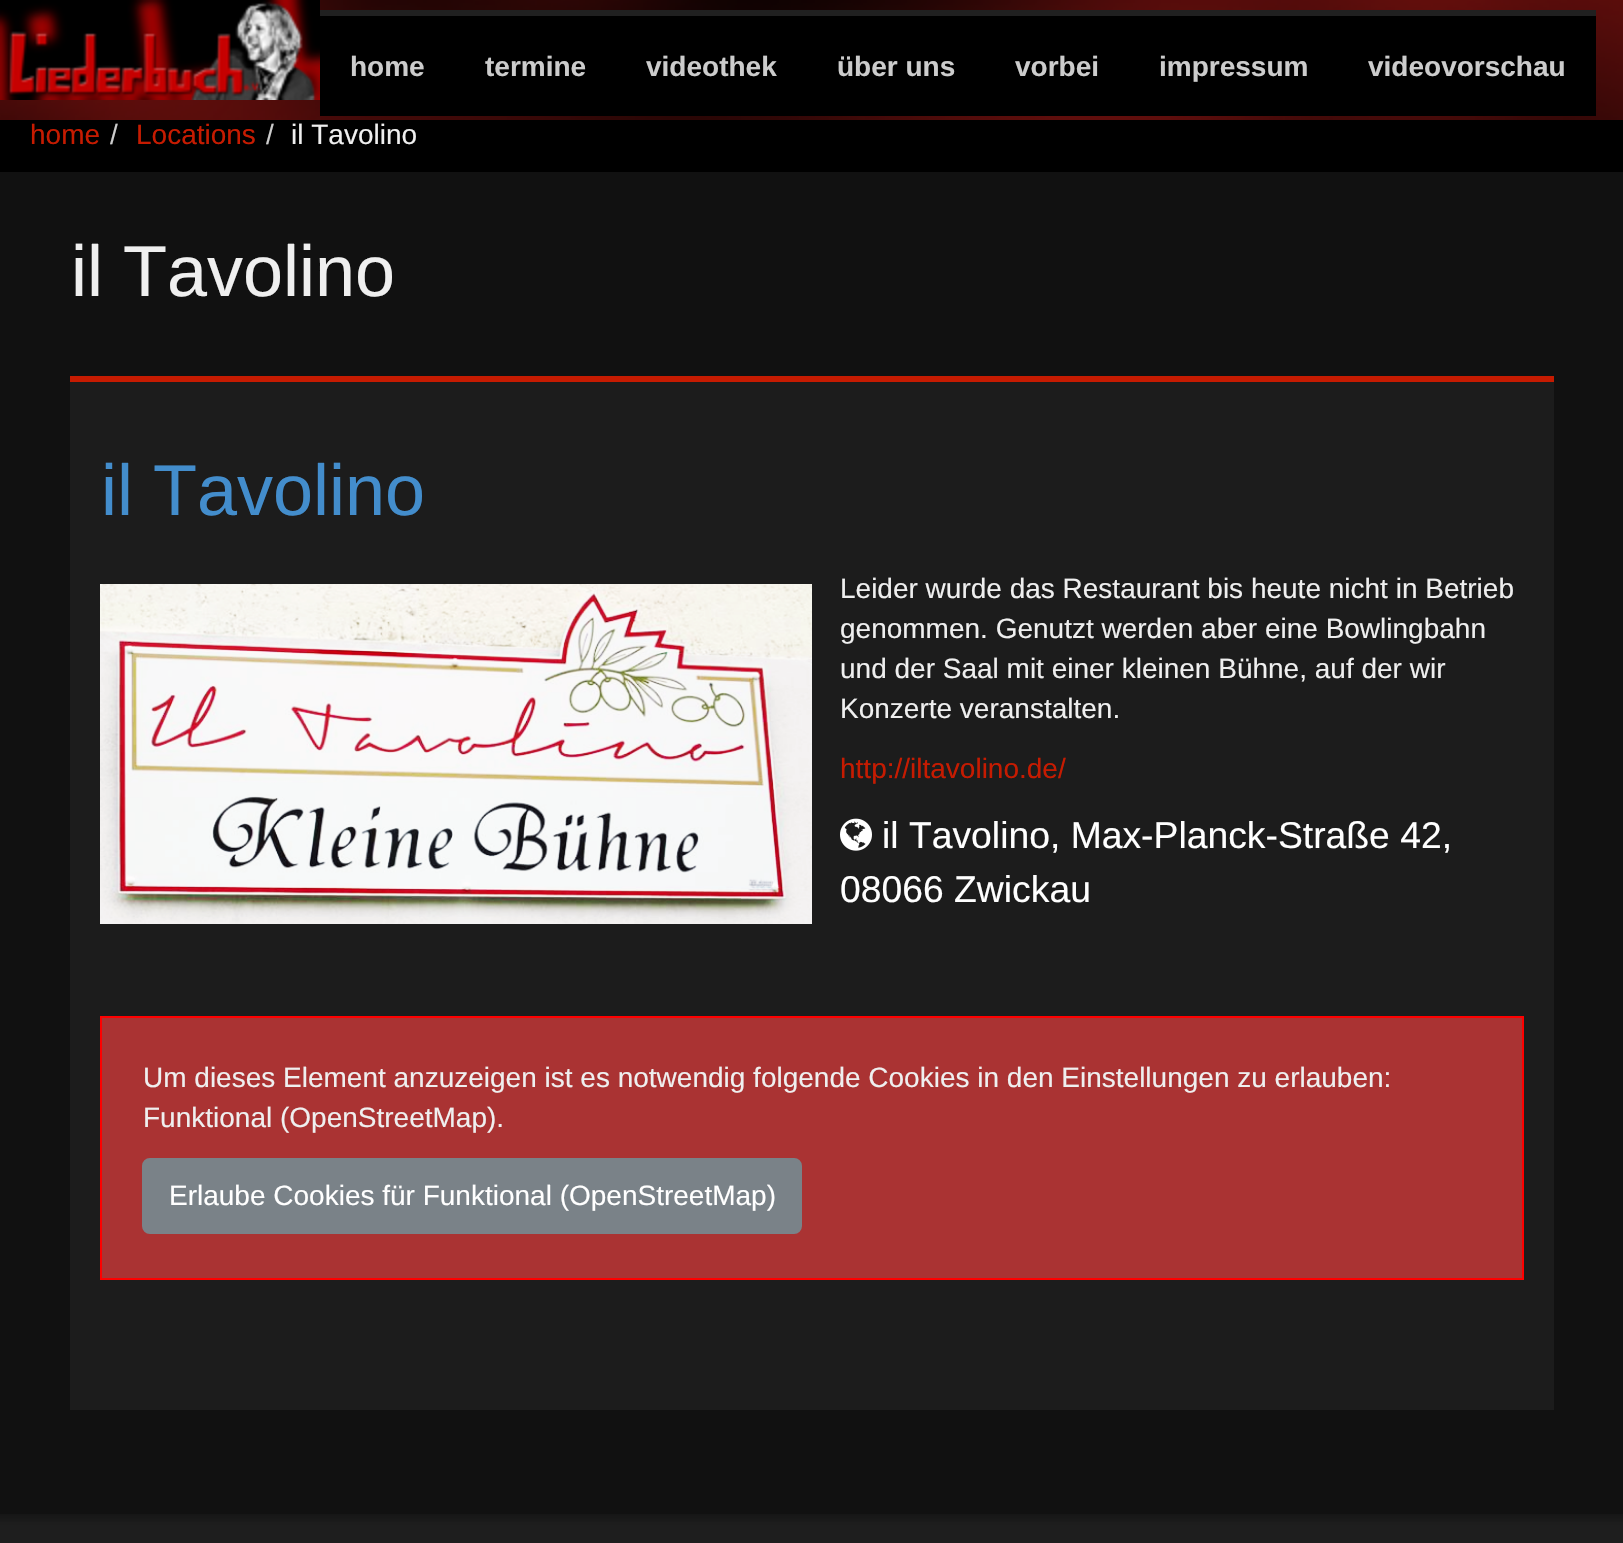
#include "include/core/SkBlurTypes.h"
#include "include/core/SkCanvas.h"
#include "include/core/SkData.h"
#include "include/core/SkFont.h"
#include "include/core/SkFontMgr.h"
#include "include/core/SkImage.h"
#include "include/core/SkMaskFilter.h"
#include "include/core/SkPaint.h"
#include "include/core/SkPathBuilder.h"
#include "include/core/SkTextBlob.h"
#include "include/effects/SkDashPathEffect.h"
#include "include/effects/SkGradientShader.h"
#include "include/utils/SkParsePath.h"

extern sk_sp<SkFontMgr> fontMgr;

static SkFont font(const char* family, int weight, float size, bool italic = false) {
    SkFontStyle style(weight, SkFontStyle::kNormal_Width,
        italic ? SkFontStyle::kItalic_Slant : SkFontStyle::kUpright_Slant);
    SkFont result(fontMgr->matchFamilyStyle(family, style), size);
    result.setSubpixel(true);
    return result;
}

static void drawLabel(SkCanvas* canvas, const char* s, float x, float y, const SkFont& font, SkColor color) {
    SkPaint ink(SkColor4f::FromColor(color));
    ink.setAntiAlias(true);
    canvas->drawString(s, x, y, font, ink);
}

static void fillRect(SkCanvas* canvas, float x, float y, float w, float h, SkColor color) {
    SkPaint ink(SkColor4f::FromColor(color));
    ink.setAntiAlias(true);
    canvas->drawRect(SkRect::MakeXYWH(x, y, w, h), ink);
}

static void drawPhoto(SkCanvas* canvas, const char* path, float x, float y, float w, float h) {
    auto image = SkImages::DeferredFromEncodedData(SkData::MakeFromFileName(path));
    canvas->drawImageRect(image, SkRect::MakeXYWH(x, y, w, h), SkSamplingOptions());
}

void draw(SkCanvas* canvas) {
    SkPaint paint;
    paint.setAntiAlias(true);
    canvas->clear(0xFF111111);
    drawPhoto(canvas, "assets/img1.png", 0, 0, 1623, 120);
    drawPhoto(canvas, "assets/img2.png", 0, 0, 320, 100);
    fillRect(canvas, 320, 16, 1276, 100, 0xFF000000);
    fillRect(canvas, 320, 10, 1276, 6, 0xFF202020);
    SkFont font1 = font("Liberation Sans", 700, 28);
    drawLabel(canvas, "home", 350, 76, font1, 0xFFCCCCCC);
    drawLabel(canvas, "termine", 485, 76, font1, 0xFFCCCCCC);
    drawLabel(canvas, "videothek", 646, 76, font1, 0xFFCCCCCC);
    drawLabel(canvas, "über uns", 837, 76, font1, 0xFFCCCCCC);
    drawLabel(canvas, "vorbei", 1015, 76, font1, 0xFFCCCCCC);
    drawLabel(canvas, "impressum", 1159, 76, font1, 0xFFCCCCCC);
    drawLabel(canvas, "videovorschau", 1368, 76, font1, 0xFFCCCCCC);
    fillRect(canvas, 0, 120, 1623, 52, 0xFF000000);
    SkFont font2 = font("Liberation Sans", 400, 28);
    drawLabel(canvas, "home", 30, 144, font2, 0xFFC61B01);
    drawLabel(canvas, "/", 110, 144, font2, 0xFFCCCCCC);
    drawLabel(canvas, "Locations", 136, 144, font2, 0xFFC61B01);
    drawLabel(canvas, "/", 266, 144, font2, 0xFFCCCCCC);
    drawLabel(canvas, "il Tavolino", 291, 144, font2, 0xFFEFEFEF);
    SkFont font3 = font("Liberation Sans", 400, 72);
    drawLabel(canvas, "il Tavolino", 71, 296, font3, 0xFFEFEFEF);
    fillRect(canvas, 70, 382, 1484, 1028, 0xFF1C1C1C);
    fillRect(canvas, 70, 376, 1484, 6, 0xFFC61B01);
    drawLabel(canvas, "il Tavolino", 101, 515, font3, 0xFF438DCC);
    drawPhoto(canvas, "assets/img3.png", 100, 584, 712, 340);
    drawLabel(canvas, "Leider wurde das Restaurant bis heute nicht in Betrieb", 840, 598, font2, 0xFFEFEFEF);
    drawLabel(canvas, "genommen. Genutzt werden aber eine Bowlingbahn", 840, 638, font2, 0xFFEFEFEF);
    drawLabel(canvas, "und der Saal mit einer kleinen Bühne, auf der wir", 840, 678, font2, 0xFFEFEFEF);
    drawLabel(canvas, "Konzerte veranstalten.", 840, 718, font2, 0xFFEFEFEF);
    drawLabel(canvas, "http://iltavolino.de/", 840, 778, font2, 0xFFC61B01);
    drawPhoto(canvas, "assets/img4.png", 840, 818, 32, 33);
    SkFont font4 = font("Liberation Sans", 400, 37.3f);
    drawLabel(canvas, "il Tavolino, Max-Planck-Straße 42,", 882, 848, font4, 0xFFFFFFFF);
    drawLabel(canvas, "08066 Zwickau", 840, 902, font4, 0xFFFFFFFF);
    paint.setColor(0xFFAA3333);
    canvas->drawRect(SkRect::MakeXYWH(101, 1017, 1422, 262), paint);
    paint.setStroke(true);
    paint.setStrokeWidth(2);
    paint.setColor(0xFFFF0000);
    canvas->drawRect(SkRect::MakeXYWH(101, 1017, 1422, 262), paint);
    drawLabel(canvas, "Um dieses Element anzuzeigen ist es notwendig folgende Cookies in den Einstellungen zu erlauben:", 143, 1087, font2, 0xFFEFEFEF);
    drawLabel(canvas, "Funktional (OpenStreetMap).", 143, 1127, font2, 0xFFEFEFEF);
    paint.setStroke(false);
    paint.setColor(0xFF7A8288);
    canvas->drawRoundRect(SkRect::MakeXYWH(143, 1159, 658, 74), 7, 7, paint);
    paint.setStroke(true);
    canvas->drawRoundRect(SkRect::MakeXYWH(143, 1159, 658, 74), 7, 7, paint);
    drawLabel(canvas, "Erlaube Cookies für Funktional (OpenStreetMap)", 169, 1205, font2, 0xFFFFFFFF);
    drawPhoto(canvas, "assets/img5.png", 0, 1514, 1623, 29);
}
